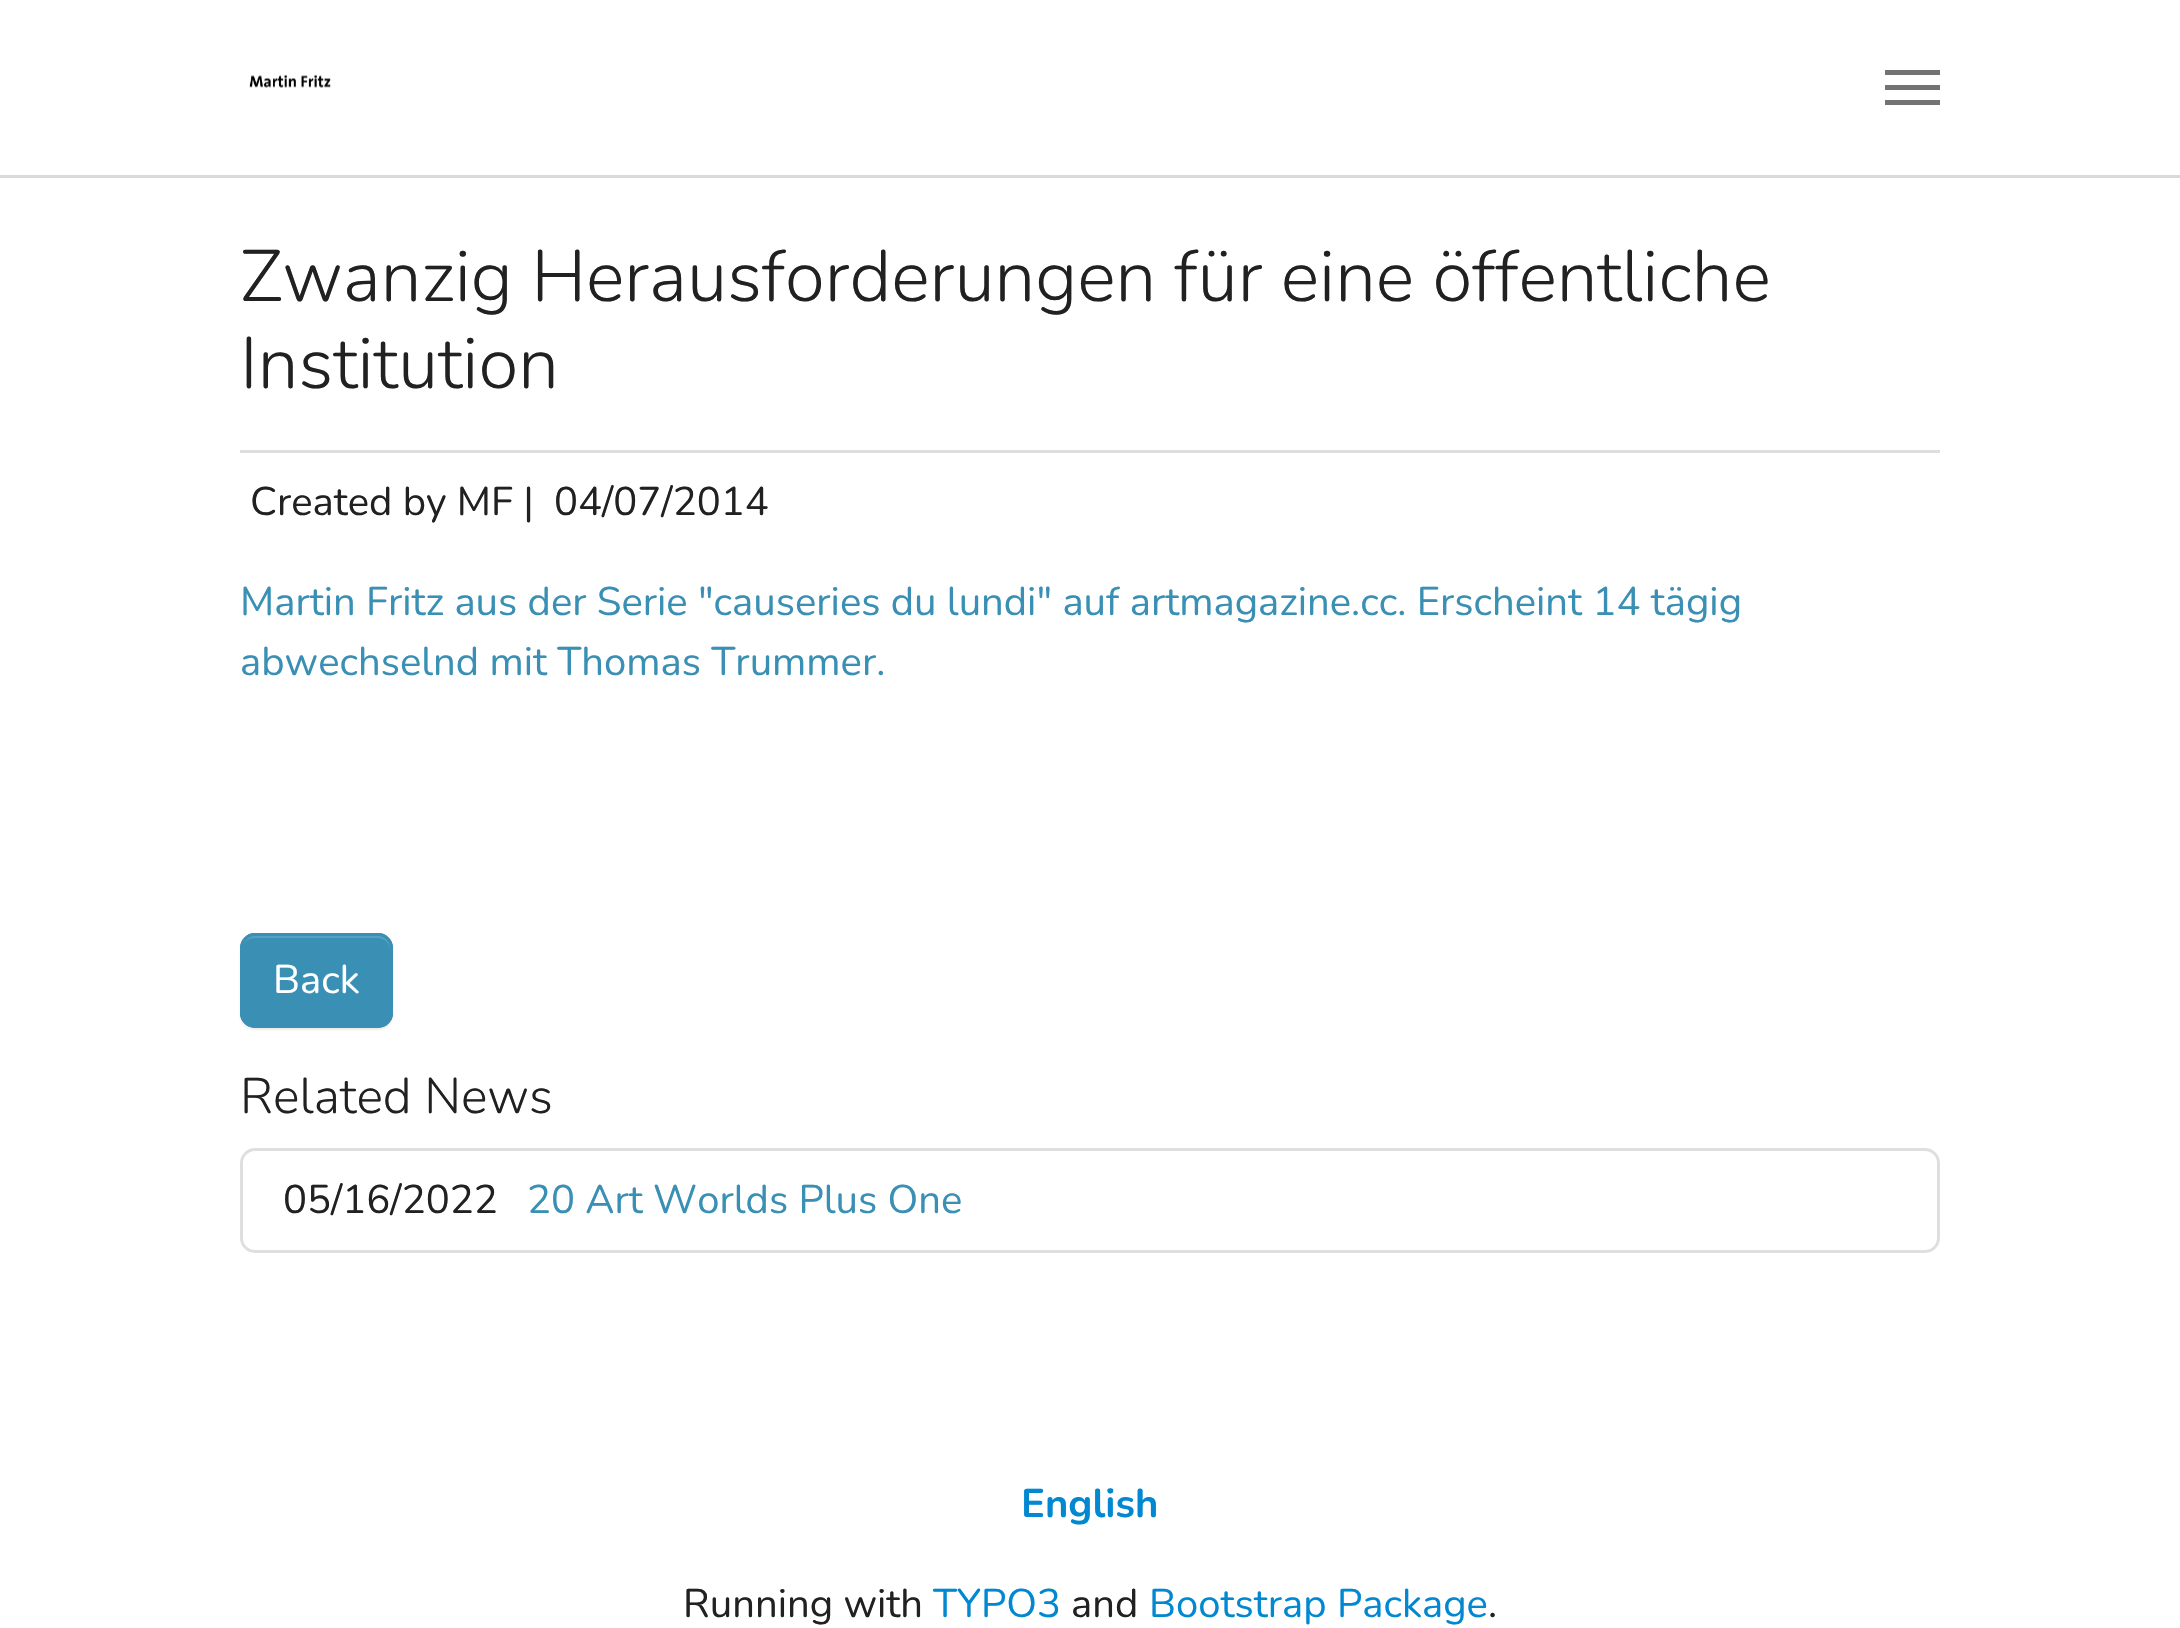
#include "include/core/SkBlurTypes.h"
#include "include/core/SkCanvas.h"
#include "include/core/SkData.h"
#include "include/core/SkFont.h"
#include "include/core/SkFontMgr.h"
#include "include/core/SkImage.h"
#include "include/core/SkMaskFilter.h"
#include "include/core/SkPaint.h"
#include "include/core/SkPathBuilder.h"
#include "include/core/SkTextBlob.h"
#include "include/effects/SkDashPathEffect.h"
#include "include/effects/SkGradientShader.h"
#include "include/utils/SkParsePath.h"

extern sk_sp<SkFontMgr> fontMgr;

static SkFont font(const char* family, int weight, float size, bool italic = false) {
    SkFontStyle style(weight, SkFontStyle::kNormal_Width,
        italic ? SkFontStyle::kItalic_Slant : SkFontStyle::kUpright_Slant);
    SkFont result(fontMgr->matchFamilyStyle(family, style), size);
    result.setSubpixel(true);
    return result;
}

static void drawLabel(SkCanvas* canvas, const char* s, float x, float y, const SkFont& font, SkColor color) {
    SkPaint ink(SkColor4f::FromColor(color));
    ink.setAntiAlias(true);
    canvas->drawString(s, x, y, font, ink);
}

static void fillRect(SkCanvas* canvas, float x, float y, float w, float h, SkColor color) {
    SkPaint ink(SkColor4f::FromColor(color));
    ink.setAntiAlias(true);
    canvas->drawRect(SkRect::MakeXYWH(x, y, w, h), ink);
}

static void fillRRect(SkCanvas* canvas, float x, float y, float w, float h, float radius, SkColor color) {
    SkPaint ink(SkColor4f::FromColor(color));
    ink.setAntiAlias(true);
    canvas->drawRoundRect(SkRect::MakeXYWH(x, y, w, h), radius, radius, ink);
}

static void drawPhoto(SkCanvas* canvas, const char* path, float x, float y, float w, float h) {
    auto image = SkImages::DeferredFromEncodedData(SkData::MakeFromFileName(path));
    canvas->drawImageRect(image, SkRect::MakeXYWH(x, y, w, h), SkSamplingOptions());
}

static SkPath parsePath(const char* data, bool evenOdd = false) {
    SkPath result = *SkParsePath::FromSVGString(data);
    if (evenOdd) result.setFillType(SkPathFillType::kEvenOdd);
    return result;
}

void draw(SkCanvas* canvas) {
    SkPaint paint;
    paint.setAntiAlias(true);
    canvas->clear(0xFFFFFFFF);
    fillRect(canvas, 0, 175, 2180, 3, 0xFFD9D9D9);
    drawPhoto(canvas, "assets/img1.png", 249, 74, 82, 14);
    fillRect(canvas, 1885, 85, 55, 5, 0xFF737373);
    fillRect(canvas, 1885, 70, 55, 5, 0xFF737373);
    fillRect(canvas, 1885, 100, 55, 5, 0xFF737373);
    fillRect(canvas, 240, 450, 1700, 3, 0xFFDEDEDE);
    SkFont font1 = font("Nunito", 300, 72.6f);
    drawLabel(canvas, "Zwanzig Herausforderungen für eine öffentliche", 240, 301, font1, 0xFF212121);
    drawLabel(canvas, "Institution", 240, 388, font1, 0xFF212121);
    SkFont font2 = font("Nunito", 400, 40);
    drawLabel(canvas, "Created by MF |", 250, 515, font2, 0xFF212121);
    drawLabel(canvas, "04/07/2014", 554, 515, font2, 0xFF212121);
    drawLabel(canvas, "Martin Fritz aus der Serie \"causeries du lundi\" auf artmagazine.cc. Erscheint 14 tägig", 240, 615, font2, 0xFF398FB4);
    drawLabel(canvas, "abwechselnd mit Thomas Trummer.", 240, 675, font2, 0xFF398FB4);
    paint.setColor(0x12000000);
    paint.setMaskFilter(SkMaskFilter::MakeBlur(kNormal_SkBlurStyle, 1));
    canvas->drawRoundRect(SkRect::MakeXYWH(240, 935, 153, 95), 15, 15, paint);
    paint.setMaskFilter(nullptr);
    fillRRect(canvas, 240, 933, 153, 95, 15, 0xFF398FB4);
    paint.setColor(0xFF57A0BF);
    canvas->drawPath(parsePath("M255 938H378C384 938 390 943 390 950V948C390 941 384 935 377 935H256C250 935 245 939 244 944C246 940 250 938 255 938Z"), paint);
    paint.setStroke(true);
    paint.setStrokeWidth(3);
    paint.setColor(0xFF398FB4);
    canvas->drawRoundRect(SkRect::MakeXYWH(241.5f, 934.5f, 150, 92), 13.5f, 13.5f, paint);
    drawLabel(canvas, "Back", 273, 993, font2, 0xFFFFFFFF);
    SkFont font3 = font("Nunito", 300, 50);
    drawLabel(canvas, "Related News", 240, 1113, font3, 0xFF212121);
    paint.setColor(0xFFDFDFDF);
    canvas->drawRoundRect(SkRect::MakeXYWH(241.5f, 1149.5f, 1697, 102), 13.5f, 13.5f, paint);
    drawLabel(canvas, "05/16/2022", 283, 1213, font2, 0xFF212121);
    drawLabel(canvas, "20 Art Worlds Plus One", 527, 1213, font2, 0xFF398FB4);
    SkFont font4 = font("Nunito", 700, 40);
    drawLabel(canvas, "English", 1021, 1517, font4, 0xFF0288D1);
    drawLabel(canvas, "Running with", 683, 1617, font2, 0xFF212121);
    drawLabel(canvas, "TYPO3", 933, 1617, font2, 0xFF0288D1);
    drawLabel(canvas, "and", 1071, 1617, font2, 0xFF212121);
    drawLabel(canvas, "Bootstrap Package", 1149, 1617, font2, 0xFF0288D1);
    drawLabel(canvas, ".", 1488, 1617, font2, 0xFF212121);
}
